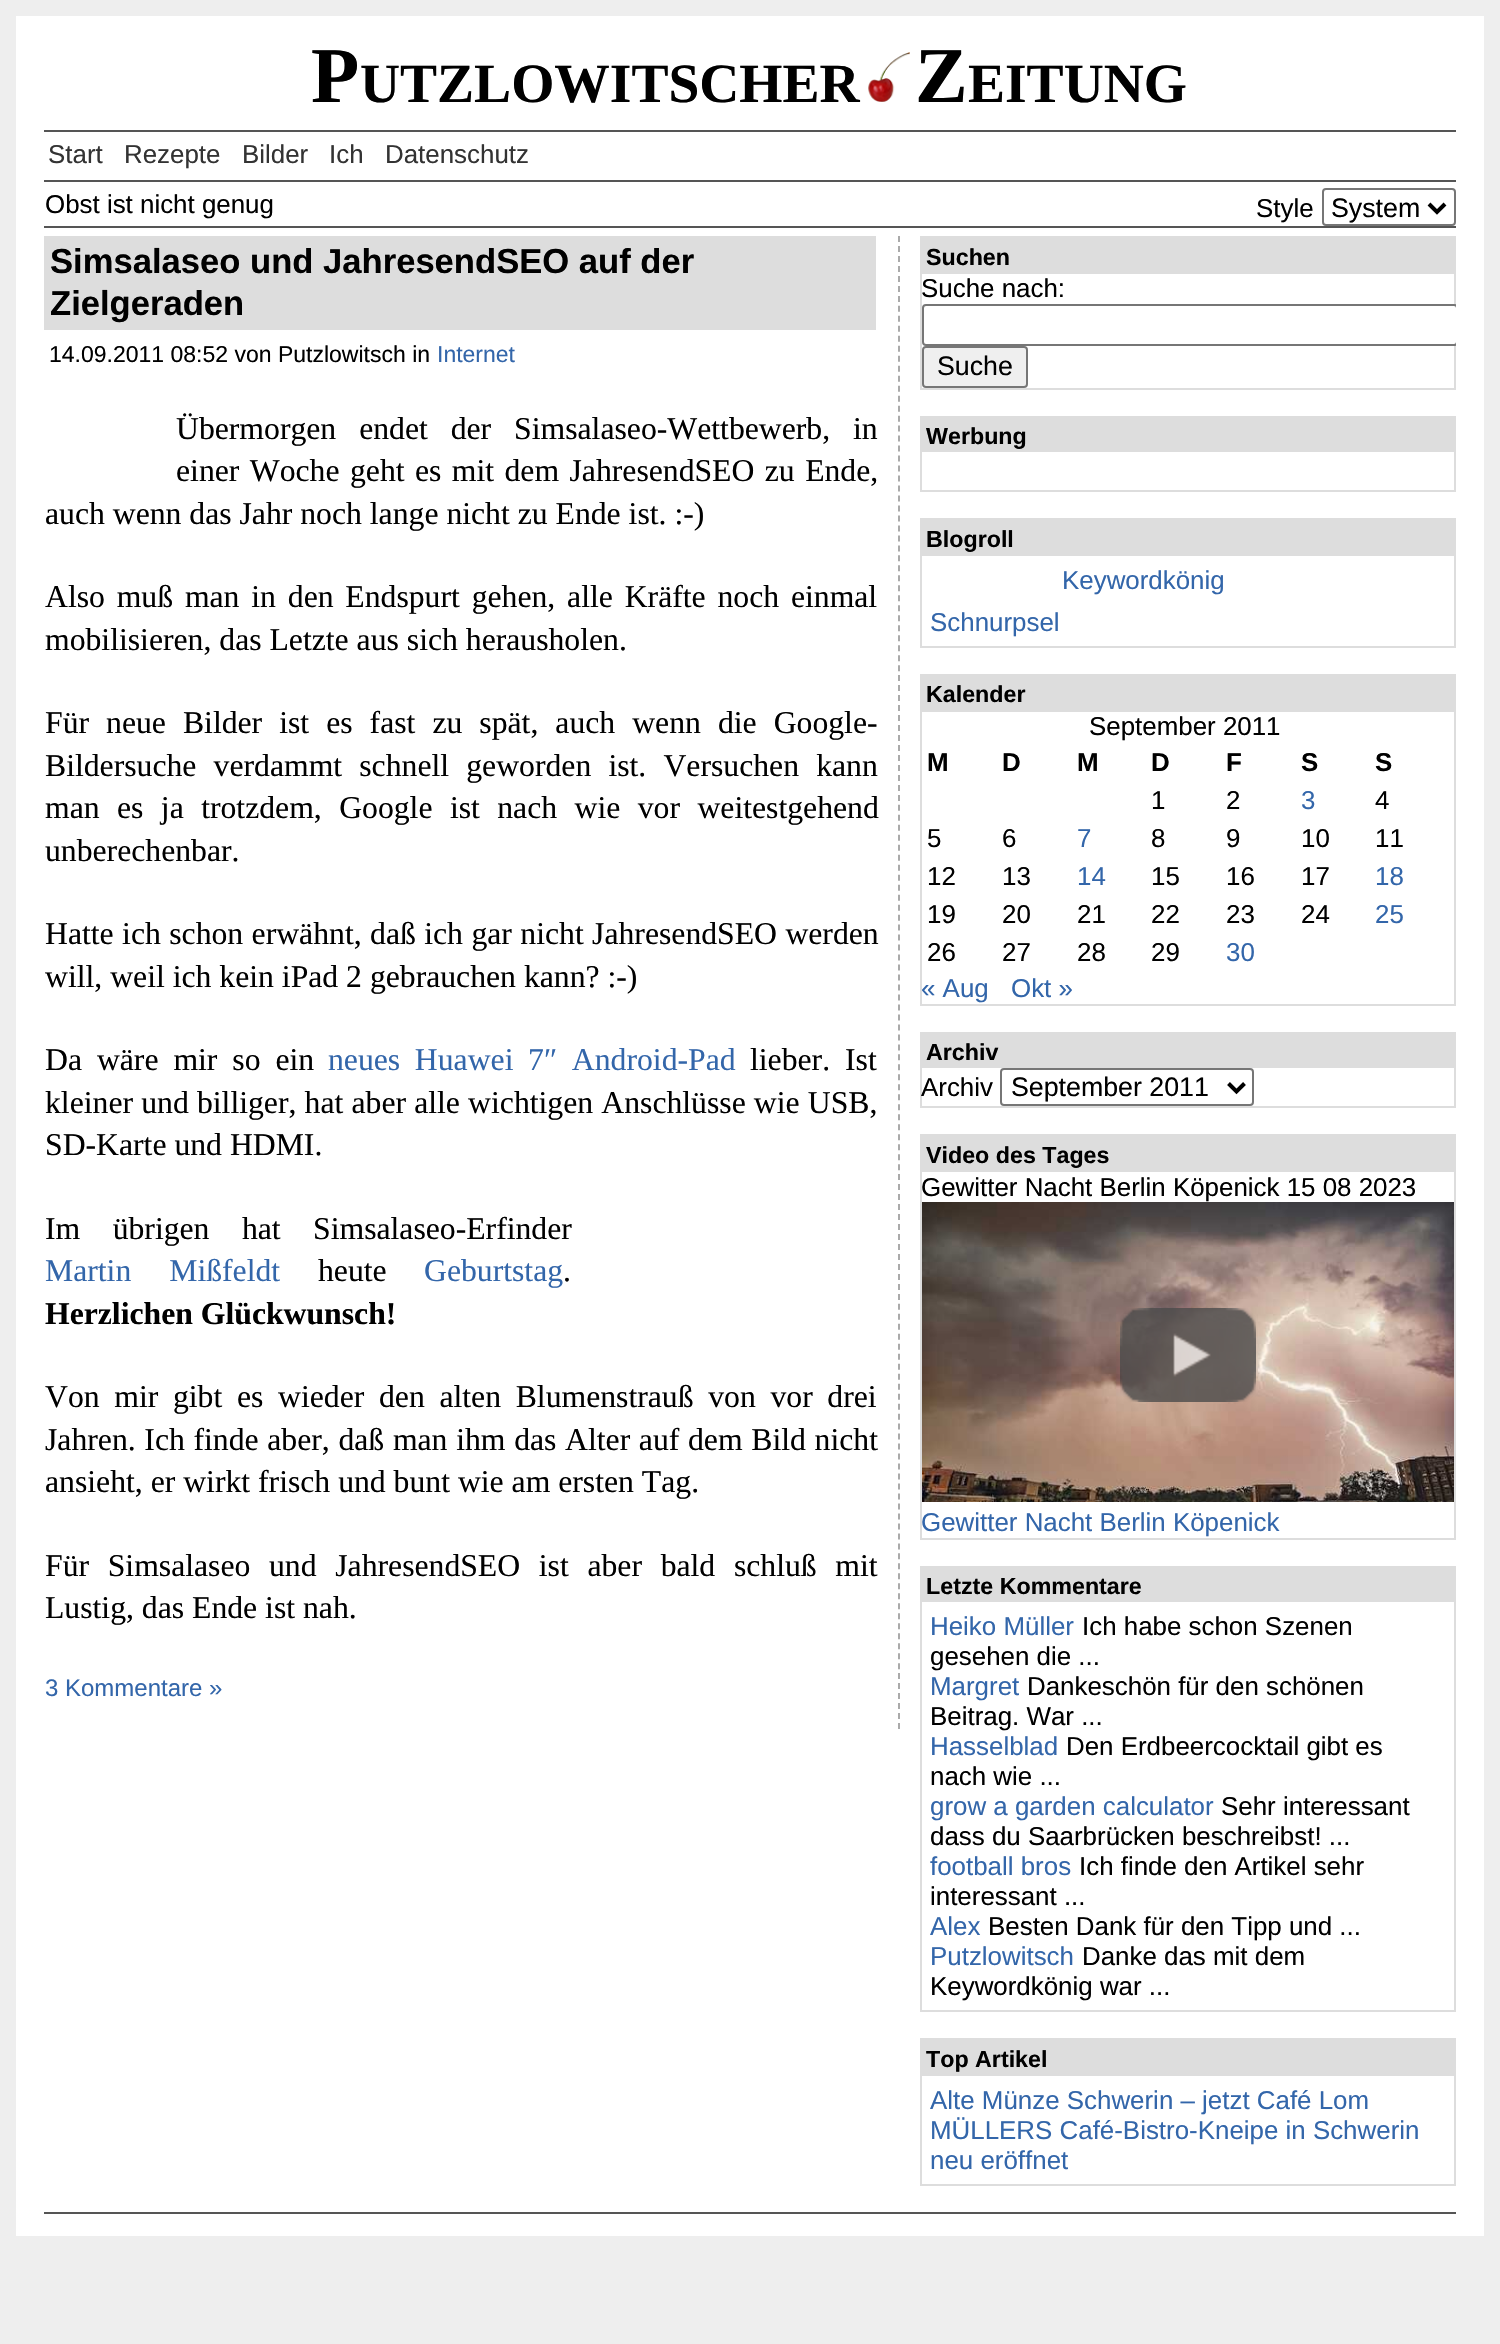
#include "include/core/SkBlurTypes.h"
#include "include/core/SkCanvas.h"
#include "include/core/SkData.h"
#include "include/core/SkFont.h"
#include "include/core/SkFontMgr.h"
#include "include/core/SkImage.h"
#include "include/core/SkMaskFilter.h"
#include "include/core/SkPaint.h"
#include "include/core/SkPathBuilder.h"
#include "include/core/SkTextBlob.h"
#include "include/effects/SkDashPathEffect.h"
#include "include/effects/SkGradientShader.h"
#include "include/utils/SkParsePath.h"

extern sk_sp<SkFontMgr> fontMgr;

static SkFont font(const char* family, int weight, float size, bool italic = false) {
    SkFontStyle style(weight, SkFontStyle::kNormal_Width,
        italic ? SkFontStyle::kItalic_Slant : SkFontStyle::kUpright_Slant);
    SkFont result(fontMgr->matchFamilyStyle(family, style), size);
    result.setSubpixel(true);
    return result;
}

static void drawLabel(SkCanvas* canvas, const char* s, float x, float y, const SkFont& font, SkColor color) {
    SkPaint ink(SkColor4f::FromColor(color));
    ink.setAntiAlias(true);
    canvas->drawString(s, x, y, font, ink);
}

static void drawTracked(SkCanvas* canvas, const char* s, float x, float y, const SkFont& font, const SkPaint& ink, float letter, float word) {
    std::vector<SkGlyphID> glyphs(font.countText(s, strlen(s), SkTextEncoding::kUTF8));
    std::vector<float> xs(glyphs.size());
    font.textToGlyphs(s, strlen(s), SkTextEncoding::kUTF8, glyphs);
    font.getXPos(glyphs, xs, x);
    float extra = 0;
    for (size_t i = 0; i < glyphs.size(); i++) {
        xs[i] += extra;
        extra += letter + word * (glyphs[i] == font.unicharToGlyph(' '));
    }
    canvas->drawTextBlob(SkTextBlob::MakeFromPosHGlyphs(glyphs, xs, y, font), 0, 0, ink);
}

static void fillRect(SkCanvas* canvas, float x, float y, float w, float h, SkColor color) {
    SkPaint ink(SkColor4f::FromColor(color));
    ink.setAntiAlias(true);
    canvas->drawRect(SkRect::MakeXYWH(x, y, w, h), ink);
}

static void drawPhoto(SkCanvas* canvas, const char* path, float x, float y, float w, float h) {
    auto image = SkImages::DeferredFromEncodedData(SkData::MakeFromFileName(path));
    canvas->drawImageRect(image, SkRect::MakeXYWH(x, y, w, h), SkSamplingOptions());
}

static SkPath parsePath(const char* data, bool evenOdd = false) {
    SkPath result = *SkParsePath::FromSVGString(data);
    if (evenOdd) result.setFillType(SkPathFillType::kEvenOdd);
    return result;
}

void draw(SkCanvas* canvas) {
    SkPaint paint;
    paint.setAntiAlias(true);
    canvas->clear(0xFFEEEEEE);
    fillRect(canvas, 16, 16, 1468, 2220, 0xFFFFFFFF);
    SkFont font1 = font("Liberation Serif", 700, 79);
    drawLabel(canvas, "P", 311, 102, font1, 0xFF000000);
    SkFont font2 = font("Liberation Serif", 700, 55.5f);
    drawLabel(canvas, "UTZLOWITSCHER", 360, 102, font2, 0xFF000000);
    drawPhoto(canvas, "assets/img1.png", 868, 52, 42, 50);
    drawLabel(canvas, "Z", 915, 102, font1, 0xFF000000);
    drawLabel(canvas, "EITUNG", 968, 102, font2, 0xFF000000);
    fillRect(canvas, 44, 130, 1412, 2, 0xFF555555);
    SkFont font3 = font("Liberation Sans", 400, 25.9f);
    drawLabel(canvas, "Start", 48, 163, font3, 0xFF333333);
    drawLabel(canvas, "Rezepte", 124, 163, font3, 0xFF333333);
    drawLabel(canvas, "Bilder", 242, 163, font3, 0xFF333333);
    drawLabel(canvas, "Ich", 329, 163, font3, 0xFF333333);
    drawLabel(canvas, "Datenschutz", 385, 163, font3, 0xFF333333);
    fillRect(canvas, 44, 180, 1412, 2, 0xFF555555);
    drawLabel(canvas, "Obst ist nicht genug", 45, 213, font3, 0xFF000000);
    drawLabel(canvas, "Style", 1256, 217, font3, 0xFF000000);
    paint.setStroke(true);
    paint.setStrokeWidth(2);
    paint.setColor(0xFF767676);
    canvas->drawRoundRect(SkRect::MakeXYWH(1323, 189, 132, 36), 3, 3, paint);
    paint.setStrokeWidth(4);
    paint.setColor(0xFF000000);
    canvas->drawPath(parsePath("M1429 204L1437 212L1445 204"), paint);
    SkFont font4 = font("Liberation Sans", 400, 26.75f);
    drawLabel(canvas, "System", 1331, 217, font4, 0xFF000000);
    fillRect(canvas, 44, 226, 1412, 2, 0xFF555555);
    paint.setStrokeWidth(2);
    paint.setColor(0xFFAAAAAA);
    paint.setPathEffect(SkDashPathEffect::Make({{6, 3.98f}}, 0));
    canvas->drawPath(parsePath("M899 236V1730"), paint);
    paint.setPathEffect(nullptr);
    fillRect(canvas, 44, 236, 832, 94, 0xFFDDDDDD);
    SkFont font5 = font("Liberation Sans", 700, 34.6f);
    drawLabel(canvas, "Simsalaseo und JahresendSEO auf der", 50, 273, font5, 0xFF000000);
    drawLabel(canvas, "Zielgeraden", 50, 315, font5, 0xFF000000);
    SkFont font6 = font("Liberation Sans", 400, 23);
    drawLabel(canvas, "14.09.2011 08:52 von Putzlowitsch in", 49, 362, font6, 0xFF000000);
    drawLabel(canvas, "Internet", 437, 362, font6, 0xFF3366AA);
    SkFont font7 = font("Liberation Serif", 400, 31.7f);
    paint.setStroke(false);
    paint.setColor(0xFF000000);
    drawTracked(canvas, "Übermorgen endet der Simsalaseo-Wettbewerb, in", 176, 439, font7, paint, 0, 15);
    drawTracked(canvas, "einer Woche geht es mit dem JahresendSEO zu Ende,", 176, 481, font7, paint, 0, 2.5f);
    drawLabel(canvas, "auch wenn das Jahr noch lange nicht zu Ende ist. :-)", 45, 524, font7, 0xFF000000);
    drawTracked(canvas, "Also muß man in den Endspurt gehen, alle Kräfte noch einmal", 45, 607, font7, paint, 0, 3.9f);
    drawLabel(canvas, "mobilisieren, das Letzte aus sich herausholen.", 45, 650, font7, 0xFF000000);
    drawTracked(canvas, "Für neue Bilder ist es fast zu spät, auch wenn die Google-", 45, 733, font7, paint, 0, 9.1f);
    drawTracked(canvas, "Bildersuche verdammt schnell geworden ist. Versuchen kann", 45, 776, font7, paint, 0, 9.25f);
    drawTracked(canvas, "man es ja trotzdem, Google ist nach wie vor weitestgehend", 45, 818, font7, paint, 0, 9.5f);
    drawLabel(canvas, "unberechenbar.", 45, 861, font7, 0xFF000000);
    drawTracked(canvas, "Hatte ich schon erwähnt, daß ich gar nicht JahresendSEO werden", 45, 944, font7, paint, 0, 0.5f);
    drawLabel(canvas, "will, weil ich kein iPad 2 gebrauchen kann? :-)", 45, 987, font7, 0xFF000000);
    drawTracked(canvas, "Da wäre mir so ein", 45, 1070, font7, paint, 0, 7);
    paint.setColor(0xFF3366AA);
    drawTracked(canvas, "neues Huawei 7″ Android-Pad", 328, 1070, font7, paint, 0, 6.75f);
    paint.setColor(0xFF000000);
    drawTracked(canvas, "lieber. Ist", 750, 1070, font7, paint, 0, 7);
    drawTracked(canvas, "kleiner und billiger, hat aber alle wichtigen Anschlüsse wie USB,", 45, 1113, font7, paint, 0, 0.25f);
    drawLabel(canvas, "SD-Karte und HDMI.", 45, 1155, font7, 0xFF000000);
    drawTracked(canvas, "Im übrigen hat Simsalaseo-Erfinder", 45, 1239, font7, paint, 0, 24.5f);
    paint.setColor(0xFF3366AA);
    drawTracked(canvas, "Martin Mißfeldt", 45, 1281, font7, paint, 0, 30);
    drawLabel(canvas, "heute", 318, 1281, font7, 0xFF000000);
    drawLabel(canvas, "Geburtstag", 424, 1281, font7, 0xFF3366AA);
    drawLabel(canvas, ".", 563, 1281, font7, 0xFF000000);
    SkFont font8 = font("Liberation Serif", 700, 31.7f);
    drawLabel(canvas, "Herzlichen Glückwunsch!", 45, 1324, font8, 0xFF000000);
    paint.setColor(0xFF000000);
    drawTracked(canvas, "Von mir gibt es wieder den alten Blumenstrauß von vor drei", 45, 1407, font7, paint, 0, 6.75f);
    drawTracked(canvas, "Jahren. Ich finde aber, daß man ihm das Alter auf dem Bild nicht", 45, 1450, font7, paint, 0, 0.75f);
    drawLabel(canvas, "ansieht, er wirkt frisch und bunt wie am ersten Tag.", 45, 1492, font7, 0xFF000000);
    drawTracked(canvas, "Für Simsalaseo und JahresendSEO ist aber bald schluß mit", 45, 1576, font7, paint, 0, 10.75f);
    drawLabel(canvas, "Lustig, das Ende ist nah.", 45, 1618, font7, 0xFF000000);
    SkFont font9 = font("Liberation Sans", 400, 24);
    drawLabel(canvas, "3 Kommentare »", 45, 1696, font9, 0xFF3366AA);
    paint.setStroke(true);
    paint.setColor(0xFFDDDDDD);
    canvas->drawRect(SkRect::MakeXYWH(921, 237, 534, 152), paint);
    fillRect(canvas, 922, 238, 532, 36, 0xFFDDDDDD);
    SkFont font10 = font("Liberation Sans", 700, 23.25f);
    drawLabel(canvas, "Suchen", 926, 265, font10, 0xFF000000);
    drawLabel(canvas, "Suche nach:", 921, 297, font3, 0xFF000000);
    canvas->save();
    canvas->clipRect(SkRect::MakeXYWH(920, 236, 536, 1976));
    paint.setStroke(false);
    paint.setColor(0xFFFFFFFF);
    canvas->drawRoundRect(SkRect::MakeXYWH(923, 305, 534, 40), 3, 3, paint);
    paint.setStroke(true);
    paint.setColor(0xFF767676);
    canvas->drawRoundRect(SkRect::MakeXYWH(923, 305, 534, 40), 3, 3, paint);
    canvas->restore();
    paint.setStroke(false);
    paint.setColor(0xFFEFEFEF);
    canvas->drawRoundRect(SkRect::MakeXYWH(923, 347, 104, 40), 3, 3, paint);
    paint.setStroke(true);
    paint.setColor(0xFF767676);
    canvas->drawRoundRect(SkRect::MakeXYWH(923, 347, 104, 40), 3, 3, paint);
    drawLabel(canvas, "Suche", 937, 375, font4, 0xFF000000);
    paint.setColor(0xFFDDDDDD);
    canvas->drawRect(SkRect::MakeXYWH(921, 417, 534, 74), paint);
    fillRect(canvas, 922, 418, 532, 34, 0xFFDDDDDD);
    drawLabel(canvas, "Werbung", 926, 444, font10, 0xFF000000);
    canvas->drawRect(SkRect::MakeXYWH(921, 519, 534, 128), paint);
    fillRect(canvas, 922, 520, 532, 36, 0xFFDDDDDD);
    drawLabel(canvas, "Blogroll", 926, 547, font10, 0xFF000000);
    drawLabel(canvas, "Keywordkönig", 1062, 589, font3, 0xFF3366AA);
    drawLabel(canvas, "Schnurpsel", 930, 631, font3, 0xFF3366AA);
    canvas->drawRect(SkRect::MakeXYWH(921, 675, 534, 330), paint);
    fillRect(canvas, 922, 676, 532, 36, 0xFFDDDDDD);
    drawLabel(canvas, "Kalender", 926, 702, font10, 0xFF000000);
    drawLabel(canvas, "September 2011", 1089, 735, font3, 0xFF000000);
    SkFont font11 = font("Liberation Sans", 700, 25.9f);
    drawLabel(canvas, "M", 927, 771, font11, 0xFF000000);
    drawLabel(canvas, "D", 1002, 771, font11, 0xFF000000);
    drawLabel(canvas, "M", 1077, 771, font11, 0xFF000000);
    drawLabel(canvas, "D", 1151, 771, font11, 0xFF000000);
    drawLabel(canvas, "F", 1226, 771, font11, 0xFF000000);
    drawLabel(canvas, "S", 1301, 771, font11, 0xFF000000);
    drawLabel(canvas, "S", 1375, 771, font11, 0xFF000000);
    drawLabel(canvas, "1", 1151, 809, font3, 0xFF000000);
    drawLabel(canvas, "2", 1226, 809, font3, 0xFF000000);
    drawLabel(canvas, "3", 1301, 809, font3, 0xFF3366AA);
    drawLabel(canvas, "4", 1375, 809, font3, 0xFF000000);
    drawLabel(canvas, "5", 927, 847, font3, 0xFF000000);
    drawLabel(canvas, "6", 1002, 847, font3, 0xFF000000);
    drawLabel(canvas, "7", 1077, 847, font3, 0xFF3366AA);
    drawLabel(canvas, "8", 1151, 847, font3, 0xFF000000);
    drawLabel(canvas, "9", 1226, 847, font3, 0xFF000000);
    drawLabel(canvas, "10", 1301, 847, font3, 0xFF000000);
    drawLabel(canvas, "11", 1375, 847, font3, 0xFF000000);
    drawLabel(canvas, "12", 927, 885, font3, 0xFF000000);
    drawLabel(canvas, "13", 1002, 885, font3, 0xFF000000);
    drawLabel(canvas, "14", 1077, 885, font3, 0xFF3366AA);
    drawLabel(canvas, "15", 1151, 885, font3, 0xFF000000);
    drawLabel(canvas, "16", 1226, 885, font3, 0xFF000000);
    drawLabel(canvas, "17", 1301, 885, font3, 0xFF000000);
    drawLabel(canvas, "18", 1375, 885, font3, 0xFF3366AA);
    drawLabel(canvas, "19", 927, 923, font3, 0xFF000000);
    drawLabel(canvas, "20", 1002, 923, font3, 0xFF000000);
    drawLabel(canvas, "21", 1077, 923, font3, 0xFF000000);
    drawLabel(canvas, "22", 1151, 923, font3, 0xFF000000);
    drawLabel(canvas, "23", 1226, 923, font3, 0xFF000000);
    drawLabel(canvas, "24", 1301, 923, font3, 0xFF000000);
    drawLabel(canvas, "25", 1375, 923, font3, 0xFF3366AA);
    drawLabel(canvas, "26", 927, 961, font3, 0xFF000000);
    drawLabel(canvas, "27", 1002, 961, font3, 0xFF000000);
    drawLabel(canvas, "28", 1077, 961, font3, 0xFF000000);
    drawLabel(canvas, "29", 1151, 961, font3, 0xFF000000);
    drawLabel(canvas, "30", 1226, 961, font3, 0xFF3366AA);
    drawLabel(canvas, "« Aug", 921, 997, font3, 0xFF3366AA);
    drawLabel(canvas, "Okt »", 1011, 997, font3, 0xFF3366AA);
    canvas->drawRect(SkRect::MakeXYWH(921, 1033, 534, 74), paint);
    fillRect(canvas, 922, 1034, 532, 34, 0xFFDDDDDD);
    drawLabel(canvas, "Archiv", 926, 1060, font10, 0xFF000000);
    drawLabel(canvas, "Archiv", 921, 1096, font3, 0xFF000000);
    paint.setColor(0xFF767676);
    canvas->drawRoundRect(SkRect::MakeXYWH(1001, 1069, 252, 36), 3, 3, paint);
    paint.setStrokeWidth(4);
    paint.setColor(0xFF000000);
    canvas->drawPath(parsePath("M1228.5 1083.5L1236.5 1091.5L1244.5 1083.5"), paint);
    drawLabel(canvas, "September 2011", 1011, 1096, font4, 0xFF000000);
    paint.setStrokeWidth(2);
    paint.setColor(0xFFDDDDDD);
    canvas->drawRect(SkRect::MakeXYWH(921, 1135, 534, 404), paint);
    fillRect(canvas, 922, 1136, 532, 36, 0xFFDDDDDD);
    drawLabel(canvas, "Video des Tages", 926, 1163, font10, 0xFF000000);
    drawLabel(canvas, "Gewitter Nacht Berlin Köpenick 15 08 2023", 921, 1196, font3, 0xFF000000);
    drawPhoto(canvas, "assets/img2.png", 922, 1202, 532, 300);
    drawPhoto(canvas, "assets/img3.png", 1120, 1308, 136, 94);
    drawLabel(canvas, "Gewitter Nacht Berlin Köpenick", 921, 1531, font3, 0xFF3366AA);
    canvas->drawRect(SkRect::MakeXYWH(921, 1567, 534, 444), paint);
    fillRect(canvas, 922, 1568, 532, 34, 0xFFDDDDDD);
    drawLabel(canvas, "Letzte Kommentare", 926, 1594, font10, 0xFF000000);
    drawLabel(canvas, "Heiko Müller", 930, 1635, font3, 0xFF3366AA);
    drawLabel(canvas, "Ich habe schon Szenen", 1082, 1635, font3, 0xFF000000);
    drawLabel(canvas, "gesehen die ...", 930, 1665, font3, 0xFF000000);
    drawLabel(canvas, "Margret", 930, 1695, font3, 0xFF3366AA);
    drawLabel(canvas, "Dankeschön für den schönen", 1027, 1695, font3, 0xFF000000);
    drawLabel(canvas, "Beitrag. War ...", 930, 1725, font3, 0xFF000000);
    drawLabel(canvas, "Hasselblad", 930, 1755, font3, 0xFF3366AA);
    drawLabel(canvas, "Den Erdbeercocktail gibt es", 1066, 1755, font3, 0xFF000000);
    drawLabel(canvas, "nach wie ...", 930, 1785, font3, 0xFF000000);
    drawLabel(canvas, "grow a garden calculator", 930, 1815, font3, 0xFF3366AA);
    drawLabel(canvas, "Sehr interessant", 1221, 1815, font3, 0xFF000000);
    drawLabel(canvas, "dass du Saarbrücken beschreibst! ...", 930, 1845, font3, 0xFF000000);
    drawLabel(canvas, "football bros", 930, 1875, font3, 0xFF3366AA);
    drawLabel(canvas, "Ich finde den Artikel sehr", 1079, 1875, font3, 0xFF000000);
    drawLabel(canvas, "interessant ...", 930, 1905, font3, 0xFF000000);
    drawLabel(canvas, "Alex", 930, 1935, font3, 0xFF3366AA);
    drawLabel(canvas, "Besten Dank für den Tipp und ...", 988, 1935, font3, 0xFF000000);
    drawLabel(canvas, "Putzlowitsch", 930, 1965, font3, 0xFF3366AA);
    drawLabel(canvas, "Danke das mit dem", 1082, 1965, font3, 0xFF000000);
    drawLabel(canvas, "Keywordkönig war ...", 930, 1995, font3, 0xFF000000);
    canvas->drawRect(SkRect::MakeXYWH(921, 2039, 534, 146), paint);
    fillRect(canvas, 922, 2040, 532, 36, 0xFFDDDDDD);
    drawLabel(canvas, "Top Artikel", 926, 2067, font10, 0xFF000000);
    drawLabel(canvas, "Alte Münze Schwerin – jetzt Café Lom", 930, 2109, font3, 0xFF3366AA);
    drawLabel(canvas, "MÜLLERS Café-Bistro-Kneipe in Schwerin", 930, 2139, font3, 0xFF3366AA);
    drawLabel(canvas, "neu eröffnet", 930, 2169, font3, 0xFF3366AA);
    fillRect(canvas, 44, 2212, 1412, 2, 0xFF555555);
}
